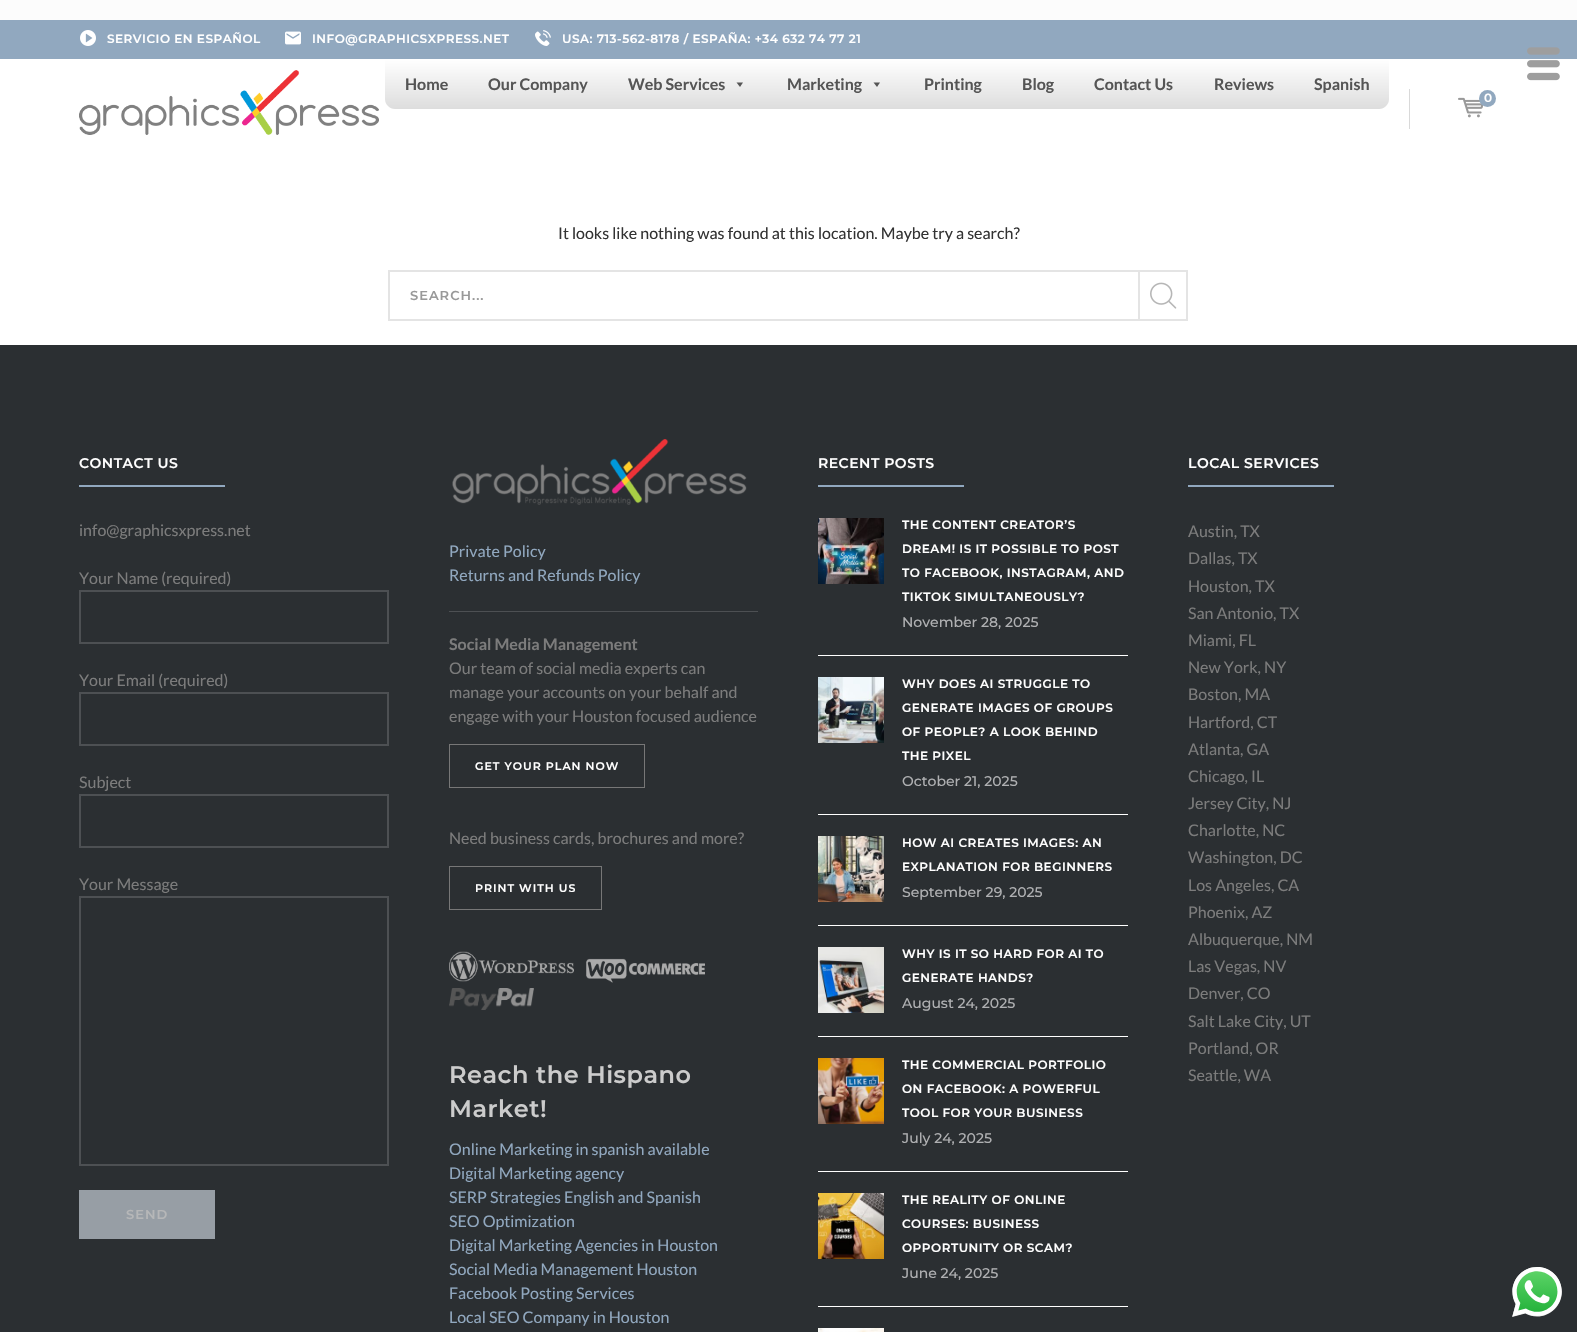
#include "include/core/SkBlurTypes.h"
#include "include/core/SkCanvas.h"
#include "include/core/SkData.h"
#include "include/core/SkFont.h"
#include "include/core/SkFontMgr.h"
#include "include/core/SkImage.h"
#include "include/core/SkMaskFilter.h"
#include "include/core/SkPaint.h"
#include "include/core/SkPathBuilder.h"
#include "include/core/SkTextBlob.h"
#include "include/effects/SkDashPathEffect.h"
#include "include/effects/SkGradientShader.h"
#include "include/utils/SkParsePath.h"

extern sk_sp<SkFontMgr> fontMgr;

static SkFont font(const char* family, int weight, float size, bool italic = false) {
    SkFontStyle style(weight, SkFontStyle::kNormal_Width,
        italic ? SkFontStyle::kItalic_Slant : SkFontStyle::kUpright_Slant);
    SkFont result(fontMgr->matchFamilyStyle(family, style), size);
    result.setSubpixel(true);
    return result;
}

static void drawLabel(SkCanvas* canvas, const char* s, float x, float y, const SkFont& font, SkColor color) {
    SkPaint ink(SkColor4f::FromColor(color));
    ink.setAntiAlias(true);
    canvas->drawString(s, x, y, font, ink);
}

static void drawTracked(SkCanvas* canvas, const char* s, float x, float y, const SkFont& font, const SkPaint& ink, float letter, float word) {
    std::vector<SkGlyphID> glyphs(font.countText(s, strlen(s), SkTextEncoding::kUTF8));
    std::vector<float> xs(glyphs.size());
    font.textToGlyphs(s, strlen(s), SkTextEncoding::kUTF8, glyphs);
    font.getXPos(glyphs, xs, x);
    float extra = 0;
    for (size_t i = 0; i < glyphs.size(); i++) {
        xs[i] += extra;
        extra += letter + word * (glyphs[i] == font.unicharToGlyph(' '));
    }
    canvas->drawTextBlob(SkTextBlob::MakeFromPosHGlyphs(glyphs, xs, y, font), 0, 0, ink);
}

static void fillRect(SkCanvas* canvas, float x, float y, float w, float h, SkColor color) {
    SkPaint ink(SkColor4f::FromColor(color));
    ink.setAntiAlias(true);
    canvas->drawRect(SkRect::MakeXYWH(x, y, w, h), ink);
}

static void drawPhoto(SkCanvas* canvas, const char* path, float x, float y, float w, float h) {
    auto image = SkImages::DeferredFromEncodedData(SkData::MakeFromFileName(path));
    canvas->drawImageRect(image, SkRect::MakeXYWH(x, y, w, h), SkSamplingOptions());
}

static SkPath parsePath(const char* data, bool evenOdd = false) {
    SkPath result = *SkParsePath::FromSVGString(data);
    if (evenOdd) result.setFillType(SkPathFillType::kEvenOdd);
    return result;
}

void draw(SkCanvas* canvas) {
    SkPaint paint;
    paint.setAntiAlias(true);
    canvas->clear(0xFFFFFFFF);
    fillRect(canvas, 0, 0, 1577, 20, 0xFFFCFCFC);
    fillRect(canvas, 0, 20, 1577, 39, 0xFF91A8BF);
    drawPhoto(canvas, "assets/img1.png", 1527, 47, 33, 34);
    drawPhoto(canvas, "assets/img2.png", 80, 30, 16, 16);
    SkFont font1 = font("Montserrat", 600, 12);
    paint.setColor(0xFFFFFFFF);
    drawTracked(canvas, "SERVICIO EN ESPAÑOL", 107, 43, font1, paint, 0.5f, 0);
    drawPhoto(canvas, "assets/img3.png", 285, 31, 16, 14);
    drawTracked(canvas, "INFO@GRAPHICSXPRESS.NET", 312, 43, font1, paint, 0.5f, 0);
    drawPhoto(canvas, "assets/img4.png", 535, 30, 16, 16);
    drawTracked(canvas, "USA: 713-562-8178 / ESPAÑA: +34 632 74 77 21", 562, 43, font1, paint, 0.5f, 0);
    drawPhoto(canvas, "assets/img5.png", 79, 70, 300, 65);
    {
        const SkColor colors[] = {0xFFFFFFFF, 0xFFDDDDDD};
        const float stops[] = {0, 1};
        const SkPoint ends[] = {{887, 59}, {887, 109}};
        paint.setShader(SkGradientShader::MakeLinear(ends, colors, stops, 2, SkTileMode::kClamp));
        paint.setAlpha(255);
    }
    canvas->drawPath(parsePath("M385 59H1389V99C1389 104.5 1384.5 109 1379 109H395C389.5 109 385 104.5 385 99Z"), paint);
    SkFont font2 = font("Lato", 700, 16);
    drawLabel(canvas, "Home", 405, 90, font2, 0xFF555555);
    drawLabel(canvas, "Our Company", 488, 90, font2, 0xFF555555);
    drawLabel(canvas, "Web Services", 628, 90, font2, 0xFF555555);
    paint.setShader(nullptr);
    paint.setColor(0xFF555555);
    canvas->drawPath(parsePath("M743 82.5L740 87L736.5 82.5Z"), paint);
    drawLabel(canvas, "Marketing", 787, 90, font2, 0xFF555555);
    canvas->drawPath(parsePath("M880 82.5L877 87L873.5 82.5Z"), paint);
    drawLabel(canvas, "Printing", 924, 90, font2, 0xFF555555);
    drawLabel(canvas, "Blog", 1022, 90, font2, 0xFF555555);
    drawLabel(canvas, "Contact Us", 1094, 90, font2, 0xFF555555);
    drawLabel(canvas, "Reviews", 1214, 90, font2, 0xFF555555);
    drawLabel(canvas, "Spanish", 1314, 90, font2, 0xFF555555);
    fillRect(canvas, 1409, 89, 1, 40, 0xFFD9D9D9);
    drawPhoto(canvas, "assets/img6.png", 1458, 97, 26, 21);
    paint.setColor(0xFF91A8BF);
    canvas->drawCircle(1487.5f, 98.5f, 8.5f, paint);
    drawLabel(canvas, "0", 1484, 102, font1, 0xFFFFFFFF);
    SkFont font3 = font("Lato", 400, 16);
    drawLabel(canvas, "It looks like nothing was found at this location. Maybe try a search?", 558, 239, font3, 0xFF333333);
    paint.setStroke(true);
    paint.setStrokeWidth(2);
    paint.setColor(0xFFE4E4E4);
    canvas->drawRect(SkRect::MakeXYWH(389, 271, 798, 49), paint);
    SkFont font4 = font("Montserrat", 600, 13);
    paint.setStroke(false);
    paint.setColor(0xFF999999);
    drawTracked(canvas, "SEARCH...", 410, 300, font4, paint, 1, 0);
    fillRect(canvas, 1138, 272, 2, 48, 0xFFE4E4E4);
    drawPhoto(canvas, "assets/img7.png", 1150, 282, 27, 27);
    fillRect(canvas, 0, 345, 1577, 987, 0xFF2B2F32);
    SkFont font5 = font("Montserrat", 600, 14);
    paint.setColor(0xFFFFFFFF);
    drawTracked(canvas, "CONTACT US", 79, 468, font5, paint, 0.5f, 0);
    fillRect(canvas, 79, 485, 146, 2, 0xFF91A8BF);
    drawLabel(canvas, "info@graphicsxpress.net", 79, 536, font3, 0xFF7C7C7C);
    drawLabel(canvas, "Your Name (required)", 79, 584, font3, 0xFF7C7C7C);
    paint.setStroke(true);
    paint.setColor(0xFF4D5053);
    canvas->drawRect(SkRect::MakeXYWH(80, 591, 308, 52), paint);
    drawLabel(canvas, "Your Email (required)", 79, 686, font3, 0xFF7C7C7C);
    canvas->drawRect(SkRect::MakeXYWH(80, 693, 308, 52), paint);
    drawLabel(canvas, "Subject", 79, 788, font3, 0xFF7C7C7C);
    canvas->drawRect(SkRect::MakeXYWH(80, 795, 308, 52), paint);
    drawLabel(canvas, "Your Message", 79, 890, font3, 0xFF7C7C7C);
    canvas->drawRect(SkRect::MakeXYWH(80, 897, 308, 268), paint);
    fillRect(canvas, 79, 1190, 136, 49, 0xFF979EA5);
    paint.setStroke(false);
    paint.setColor(0xFFB6B7B8);
    drawTracked(canvas, "SEND", 126, 1219, font4, paint, 1, 0);
    drawPhoto(canvas, "assets/img8.png", 452, 439, 295, 66);
    drawLabel(canvas, "Private Policy", 449, 557, font3, 0xFF91A8BF);
    drawLabel(canvas, "Returns and Refunds Policy", 449, 581, font3, 0xFF91A8BF);
    fillRect(canvas, 449, 611, 309, 1, 0xFF4D5053);
    drawLabel(canvas, "Social Media Management", 449, 650, font2, 0xFF7C7C7C);
    drawLabel(canvas, "Our team of social media experts can", 449, 674, font3, 0xFF7C7C7C);
    drawLabel(canvas, "manage your accounts on your behalf and", 449, 698, font3, 0xFF7C7C7C);
    drawLabel(canvas, "engage with your Houston focused audience", 449, 722, font3, 0xFF7C7C7C);
    paint.setStroke(true);
    paint.setStrokeWidth(1);
    paint.setColor(0xFF777777);
    canvas->drawRect(SkRect::MakeXYWH(449.5f, 744.5f, 195, 43), paint);
    SkFont font6 = font("Montserrat", 600, 11);
    paint.setStroke(false);
    paint.setColor(0xFFFFFFFF);
    drawTracked(canvas, "GET YOUR PLAN NOW", 475, 770, font6, paint, 1, 0);
    drawLabel(canvas, "Need business cards, brochures and more?", 449, 844, font3, 0xFF7C7C7C);
    paint.setStroke(true);
    paint.setColor(0xFF777777);
    canvas->drawRect(SkRect::MakeXYWH(449.5f, 866.5f, 152, 43), paint);
    paint.setStroke(false);
    paint.setColor(0xFFFFFFFF);
    drawTracked(canvas, "PRINT WITH US", 475, 892, font6, paint, 1, 0);
    drawPhoto(canvas, "assets/img9.png", 449, 951, 125, 31);
    drawPhoto(canvas, "assets/img10.png", 586, 958, 119, 25);
    drawPhoto(canvas, "assets/img11.png", 449, 988, 85, 22);
    SkFont font7 = font("Montserrat", 600, 24);
    paint.setColor(0xFFCCCCCC);
    drawTracked(canvas, "Reach the Hispano", 449, 1083, font7, paint, 0.5f, 0);
    drawTracked(canvas, "Market!", 449, 1117, font7, paint, 0.5f, 0);
    drawLabel(canvas, "Online Marketing in spanish available", 449, 1155, font3, 0xFF91A8BF);
    drawLabel(canvas, "Digital Marketing agency", 449, 1179, font3, 0xFF91A8BF);
    drawLabel(canvas, "SERP Strategies English and Spanish", 449, 1203, font3, 0xFF91A8BF);
    drawLabel(canvas, "SEO Optimization", 449, 1227, font3, 0xFF91A8BF);
    drawLabel(canvas, "Digital Marketing Agencies in Houston", 449, 1251, font3, 0xFF91A8BF);
    drawLabel(canvas, "Social Media Management Houston", 449, 1275, font3, 0xFF91A8BF);
    drawLabel(canvas, "Facebook Posting Services", 449, 1299, font3, 0xFF91A8BF);
    drawLabel(canvas, "Local SEO Company in Houston", 449, 1323, font3, 0xFF91A8BF);
    paint.setColor(0xFFFFFFFF);
    drawTracked(canvas, "RECENT POSTS", 818, 468, font5, paint, 0.5f, 0);
    fillRect(canvas, 818, 485, 146, 2, 0xFF91A8BF);
    drawPhoto(canvas, "assets/img12.png", 818, 518, 66, 66);
    drawTracked(canvas, "THE CONTENT CREATOR’S", 902, 529, font1, paint, 0.5f, 0);
    drawTracked(canvas, "DREAM! IS IT POSSIBLE TO POST", 902, 553, font1, paint, 0.5f, 0);
    drawTracked(canvas, "TO FACEBOOK, INSTAGRAM, AND", 902, 577, font1, paint, 0.5f, 0);
    drawTracked(canvas, "TIKTOK SIMULTANEOUSLY?", 902, 601, font1, paint, 0.5f, 0);
    SkFont font8 = font("Montserrat", 500, 14);
    drawLabel(canvas, "November 28, 2025", 902, 627, font8, 0xFFAFB0B2);
    fillRect(canvas, 818, 655, 310, 1, 0xFFFFFFFF);
    drawPhoto(canvas, "assets/img13.png", 818, 677, 66, 66);
    drawTracked(canvas, "WHY DOES AI STRUGGLE TO", 902, 688, font1, paint, 0.5f, 0);
    drawTracked(canvas, "GENERATE IMAGES OF GROUPS", 902, 712, font1, paint, 0.5f, 0);
    drawTracked(canvas, "OF PEOPLE? A LOOK BEHIND", 902, 736, font1, paint, 0.5f, 0);
    drawTracked(canvas, "THE PIXEL", 902, 760, font1, paint, 0.5f, 0);
    drawLabel(canvas, "October 21, 2025", 902, 786, font8, 0xFFAFB0B2);
    fillRect(canvas, 818, 814, 310, 1, 0xFFFFFFFF);
    drawPhoto(canvas, "assets/img14.png", 818, 836, 66, 66);
    drawTracked(canvas, "HOW AI CREATES IMAGES: AN", 902, 847, font1, paint, 0.5f, 0);
    drawTracked(canvas, "EXPLANATION FOR BEGINNERS", 902, 871, font1, paint, 0.5f, 0);
    drawLabel(canvas, "September 29, 2025", 902, 897, font8, 0xFFAFB0B2);
    fillRect(canvas, 818, 925, 310, 1, 0xFFFFFFFF);
    drawPhoto(canvas, "assets/img15.png", 818, 947, 66, 66);
    drawTracked(canvas, "WHY IS IT SO HARD FOR AI TO", 902, 958, font1, paint, 0.5f, 0);
    drawTracked(canvas, "GENERATE HANDS?", 902, 982, font1, paint, 0.5f, 0);
    drawLabel(canvas, "August 24, 2025", 902, 1008, font8, 0xFFAFB0B2);
    fillRect(canvas, 818, 1036, 310, 1, 0xFFFFFFFF);
    drawPhoto(canvas, "assets/img16.png", 818, 1058, 66, 66);
    drawTracked(canvas, "THE COMMERCIAL PORTFOLIO", 902, 1069, font1, paint, 0.5f, 0);
    drawTracked(canvas, "ON FACEBOOK: A POWERFUL", 902, 1093, font1, paint, 0.5f, 0);
    drawTracked(canvas, "TOOL FOR YOUR BUSINESS", 902, 1117, font1, paint, 0.5f, 0);
    drawLabel(canvas, "July 24, 2025", 902, 1143, font8, 0xFFAFB0B2);
    fillRect(canvas, 818, 1171, 310, 1, 0xFFFFFFFF);
    drawPhoto(canvas, "assets/img17.png", 818, 1193, 66, 66);
    drawTracked(canvas, "THE REALITY OF ONLINE", 902, 1204, font1, paint, 0.5f, 0);
    drawTracked(canvas, "COURSES: BUSINESS", 902, 1228, font1, paint, 0.5f, 0);
    drawTracked(canvas, "OPPORTUNITY OR SCAM?", 902, 1252, font1, paint, 0.5f, 0);
    drawLabel(canvas, "June 24, 2025", 902, 1278, font8, 0xFFAFB0B2);
    fillRect(canvas, 818, 1306, 310, 1, 0xFFFFFFFF);
    drawPhoto(canvas, "assets/img18.png", 818, 1328, 66, 4);
    drawTracked(canvas, "LOCAL SERVICES", 1188, 468, font5, paint, 0.5f, 0);
    fillRect(canvas, 1188, 485, 146, 2, 0xFF91A8BF);
    drawLabel(canvas, "Austin, TX", 1188, 537, font3, 0xFF7C7C7C);
    drawLabel(canvas, "Dallas, TX", 1188, 564, font3, 0xFF7C7C7C);
    drawLabel(canvas, "Houston, TX", 1188, 592, font3, 0xFF7C7C7C);
    drawLabel(canvas, "San Antonio, TX", 1188, 619, font3, 0xFF7C7C7C);
    drawLabel(canvas, "Miami, FL", 1188, 646, font3, 0xFF7C7C7C);
    drawLabel(canvas, "New York, NY", 1188, 673, font3, 0xFF7C7C7C);
    drawLabel(canvas, "Boston, MA", 1188, 700, font3, 0xFF7C7C7C);
    drawLabel(canvas, "Hartford, CT", 1188, 728, font3, 0xFF7C7C7C);
    drawLabel(canvas, "Atlanta, GA", 1188, 755, font3, 0xFF7C7C7C);
    drawLabel(canvas, "Chicago, IL", 1188, 782, font3, 0xFF7C7C7C);
    drawLabel(canvas, "Jersey City, NJ", 1188, 809, font3, 0xFF7C7C7C);
    drawLabel(canvas, "Charlotte, NC", 1188, 836, font3, 0xFF7C7C7C);
    drawLabel(canvas, "Washington, DC", 1188, 863, font3, 0xFF7C7C7C);
    drawLabel(canvas, "Los Angeles, CA", 1188, 891, font3, 0xFF7C7C7C);
    drawLabel(canvas, "Phoenix, AZ", 1188, 918, font3, 0xFF7C7C7C);
    drawLabel(canvas, "Albuquerque, NM", 1188, 945, font3, 0xFF7C7C7C);
    drawLabel(canvas, "Las Vegas, NV", 1188, 972, font3, 0xFF7C7C7C);
    drawLabel(canvas, "Denver, CO", 1188, 999, font3, 0xFF7C7C7C);
    drawLabel(canvas, "Salt Lake City, UT", 1188, 1027, font3, 0xFF7C7C7C);
    drawLabel(canvas, "Portland, OR", 1188, 1054, font3, 0xFF7C7C7C);
    drawLabel(canvas, "Seattle, WA", 1188, 1081, font3, 0xFF7C7C7C);
    drawPhoto(canvas, "assets/img19.png", 1512, 1267, 50, 50);
}
